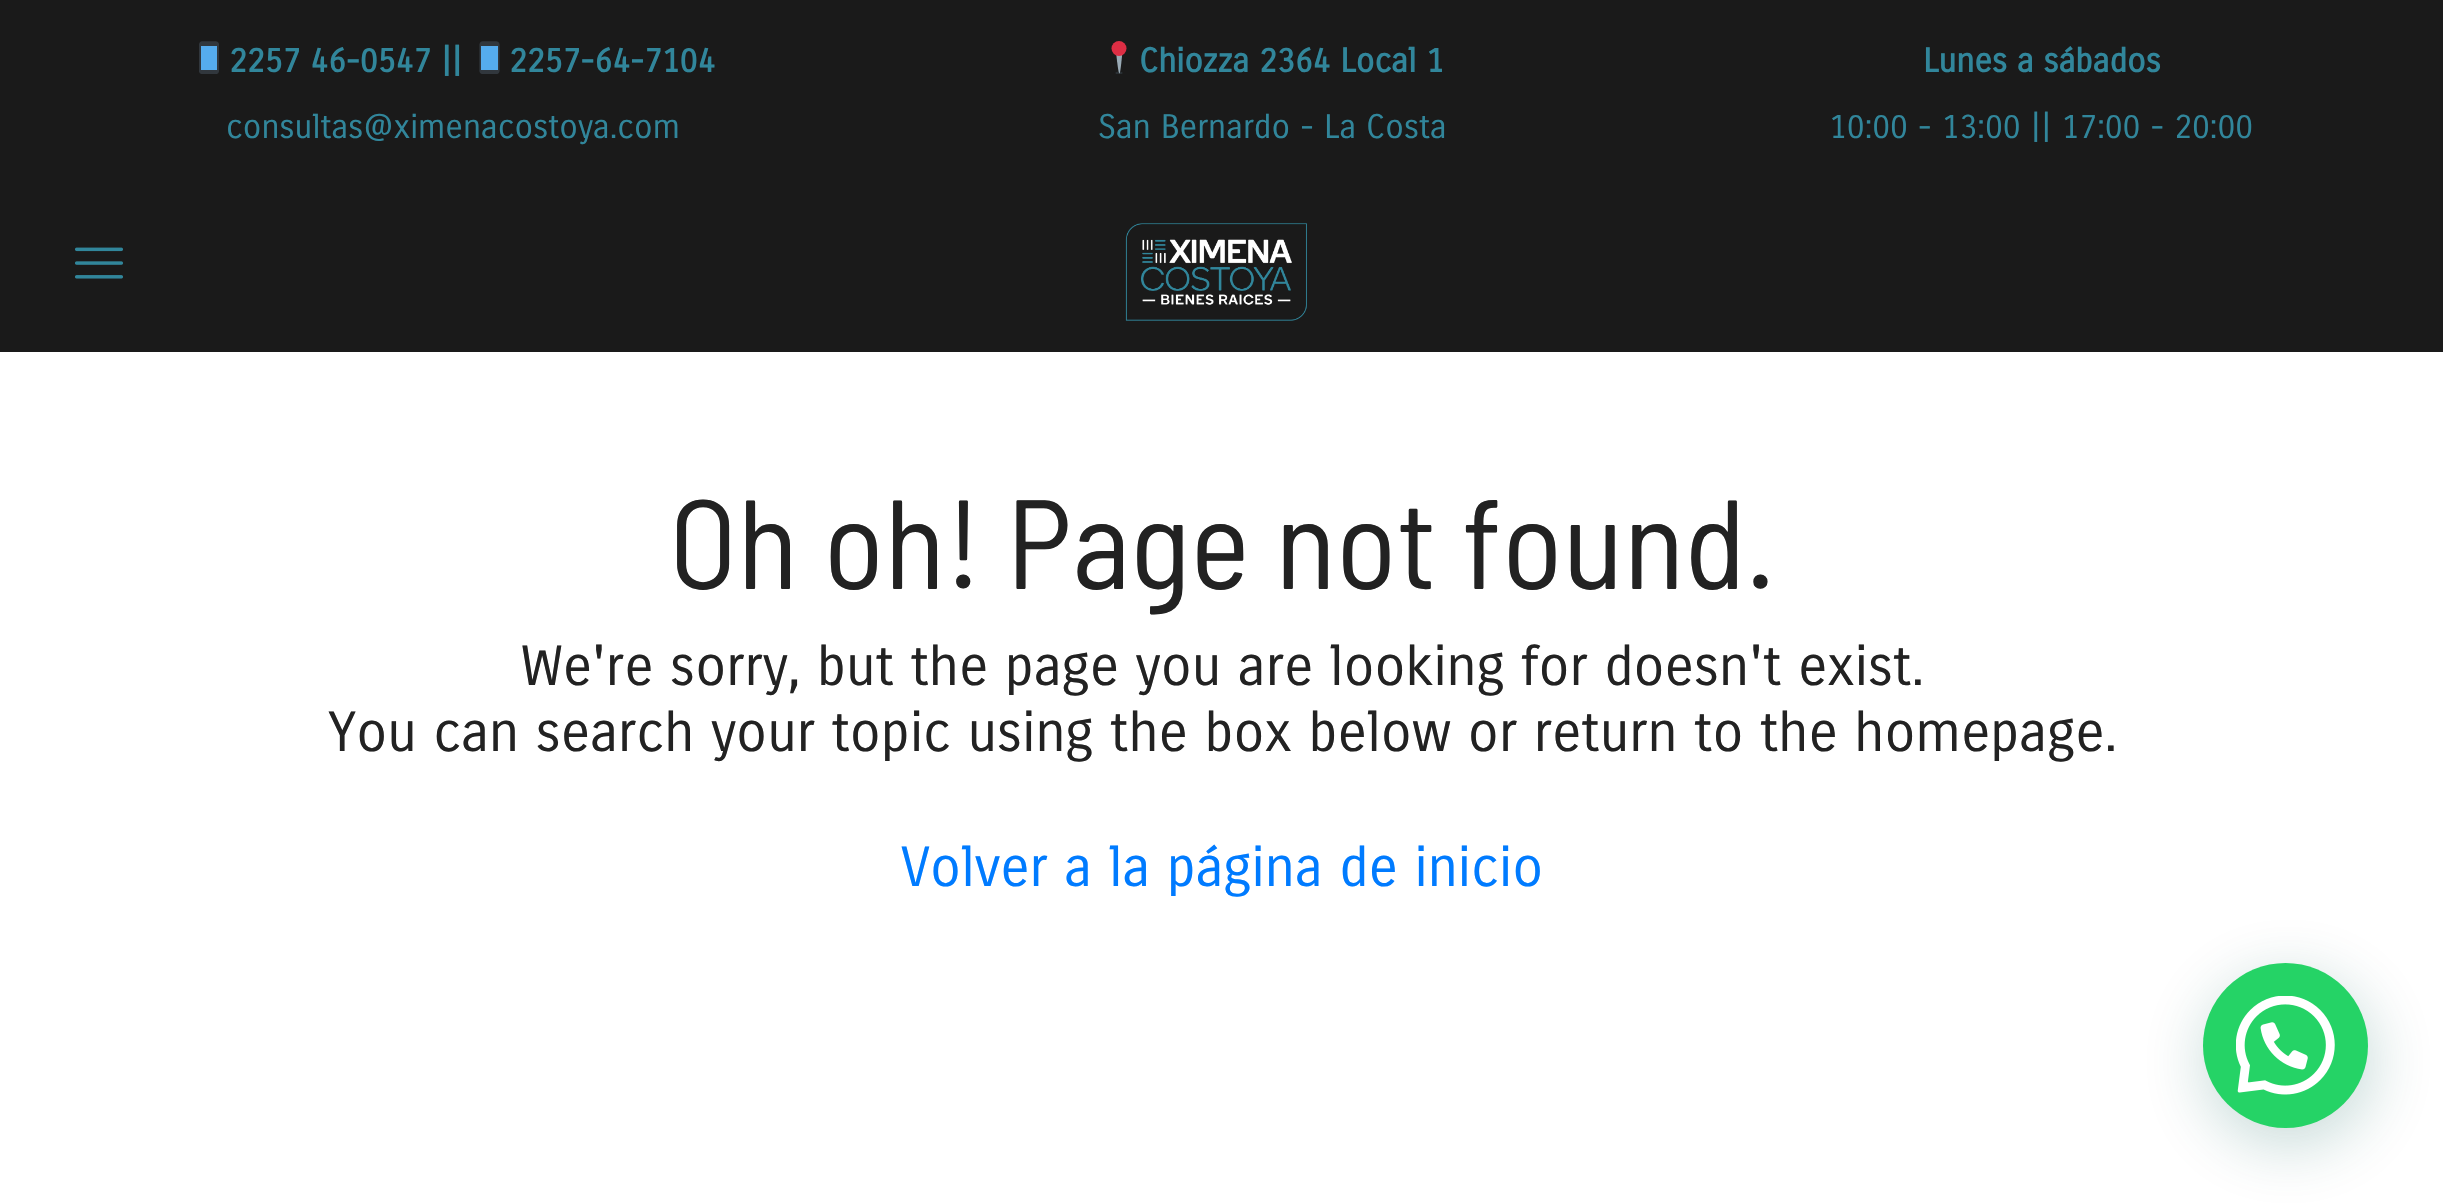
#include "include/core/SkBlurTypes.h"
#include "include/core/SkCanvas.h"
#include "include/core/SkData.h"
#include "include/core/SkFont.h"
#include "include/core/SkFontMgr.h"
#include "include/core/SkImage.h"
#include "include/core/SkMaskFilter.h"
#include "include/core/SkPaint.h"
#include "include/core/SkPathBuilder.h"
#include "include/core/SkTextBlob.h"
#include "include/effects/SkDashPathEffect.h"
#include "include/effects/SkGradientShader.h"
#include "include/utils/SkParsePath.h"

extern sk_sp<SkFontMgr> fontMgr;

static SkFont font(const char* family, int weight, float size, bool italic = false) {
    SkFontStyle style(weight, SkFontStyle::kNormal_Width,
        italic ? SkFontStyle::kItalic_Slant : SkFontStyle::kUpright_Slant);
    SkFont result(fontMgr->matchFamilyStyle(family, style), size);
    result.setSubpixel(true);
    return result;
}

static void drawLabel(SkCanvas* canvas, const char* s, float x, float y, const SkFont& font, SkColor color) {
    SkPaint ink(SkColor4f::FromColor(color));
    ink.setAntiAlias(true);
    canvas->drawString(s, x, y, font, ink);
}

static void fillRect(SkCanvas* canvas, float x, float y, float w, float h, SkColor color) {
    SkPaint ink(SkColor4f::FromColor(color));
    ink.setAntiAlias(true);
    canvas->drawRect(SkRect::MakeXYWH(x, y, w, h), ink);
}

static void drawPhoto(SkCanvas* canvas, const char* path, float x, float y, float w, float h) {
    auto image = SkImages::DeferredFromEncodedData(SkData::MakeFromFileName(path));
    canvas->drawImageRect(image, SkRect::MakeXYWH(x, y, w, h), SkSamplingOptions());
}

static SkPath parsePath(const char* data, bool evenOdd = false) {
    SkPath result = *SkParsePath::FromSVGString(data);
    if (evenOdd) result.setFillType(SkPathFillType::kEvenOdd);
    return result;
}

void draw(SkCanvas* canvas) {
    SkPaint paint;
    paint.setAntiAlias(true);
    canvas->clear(0xFFFFFFFF);
    fillRect(canvas, 0, 0, 2443, 352, 0xFF1A1A1A);
    drawPhoto(canvas, "assets/img1.png", 199, 41, 20, 33);
    SkFont font1 = font("Carrois Gothic", 700, 33);
    drawLabel(canvas, "2257 46-0547 ||", 229, 72, font1, 0xFF31869B);
    drawPhoto(canvas, "assets/img2.png", 479, 41, 21, 33);
    drawLabel(canvas, "2257-64-7104", 509, 72, font1, 0xFF31869B);
    SkFont font2 = font("Carrois Gothic", 400, 33);
    drawLabel(canvas, "consultas@ximenacostoya.com", 226, 138, font2, 0xFF31869B);
    canvas->save();
    canvas->clipRect(SkRect::MakeXYWH(1103, 41, 33, 33));
    paint.setColor(0xFF292F33);
    canvas->drawOval(SkRect::MakeXYWH(1115.5f, 71.5f, 7, 3), paint);
    canvas->restore();
    paint.setColor(0xFF99AAB5);
    canvas->drawPath(parsePath("M1116 51C1116 51 1118 73.5 1119.5 73.5C1120.5 73.5 1122.5 51 1122.5 51Z"), paint);
    paint.setColor(0xFFDD2E44);
    canvas->drawCircle(1119, 48.5f, 7.5f, paint);
    drawLabel(canvas, "Chiozza 2364 Local 1", 1139, 72, font1, 0xFF31869B);
    drawLabel(canvas, "San Bernardo - La Costa", 1098, 138, font2, 0xFF31869B);
    drawLabel(canvas, "Lunes a sábados", 1923, 72, font1, 0xFF31869B);
    drawLabel(canvas, "10:00 - 13:00 || 17:00 - 20:00", 1829, 138, font2, 0xFF31869B);
    drawPhoto(canvas, "assets/img3.png", 75, 247, 48, 32);
    drawPhoto(canvas, "assets/img4.png", 1125, 223, 182, 98);
    SkFont font3 = font("Barlow Semi Condensed", 400, 126.5f);
    drawLabel(canvas, "Oh oh! Page not found.", 669, 589, font3, 0xFF222222);
    SkFont font4 = font("Carrois Gothic", 400, 55);
    drawLabel(canvas, "We're sorry, but the page you are looking for doesn't exist.", 521, 685, font4, 0xFF222222);
    drawLabel(canvas, "You can search your topic using the box below or return to the homepage.", 328, 751, font4, 0xFF222222);
    drawLabel(canvas, "Volver a la página de inicio", 901, 886, font4, 0xFF007BFF);
    paint.setColor(0x3D075E54);
    paint.setMaskFilter(SkMaskFilter::MakeBlur(kNormal_SkBlurStyle, 33));
    canvas->drawRoundRect(SkRect::MakeXYWH(2206, 979, 165, 165), 82.5f, 82.5f, paint);
    paint.setMaskFilter(nullptr);
    paint.setColor(0xFF25D366);
    canvas->drawCircle(2285.5f, 1045.5f, 82.5f, paint);
    drawPhoto(canvas, "assets/img5.png", 2236, 996, 99, 99);
}
